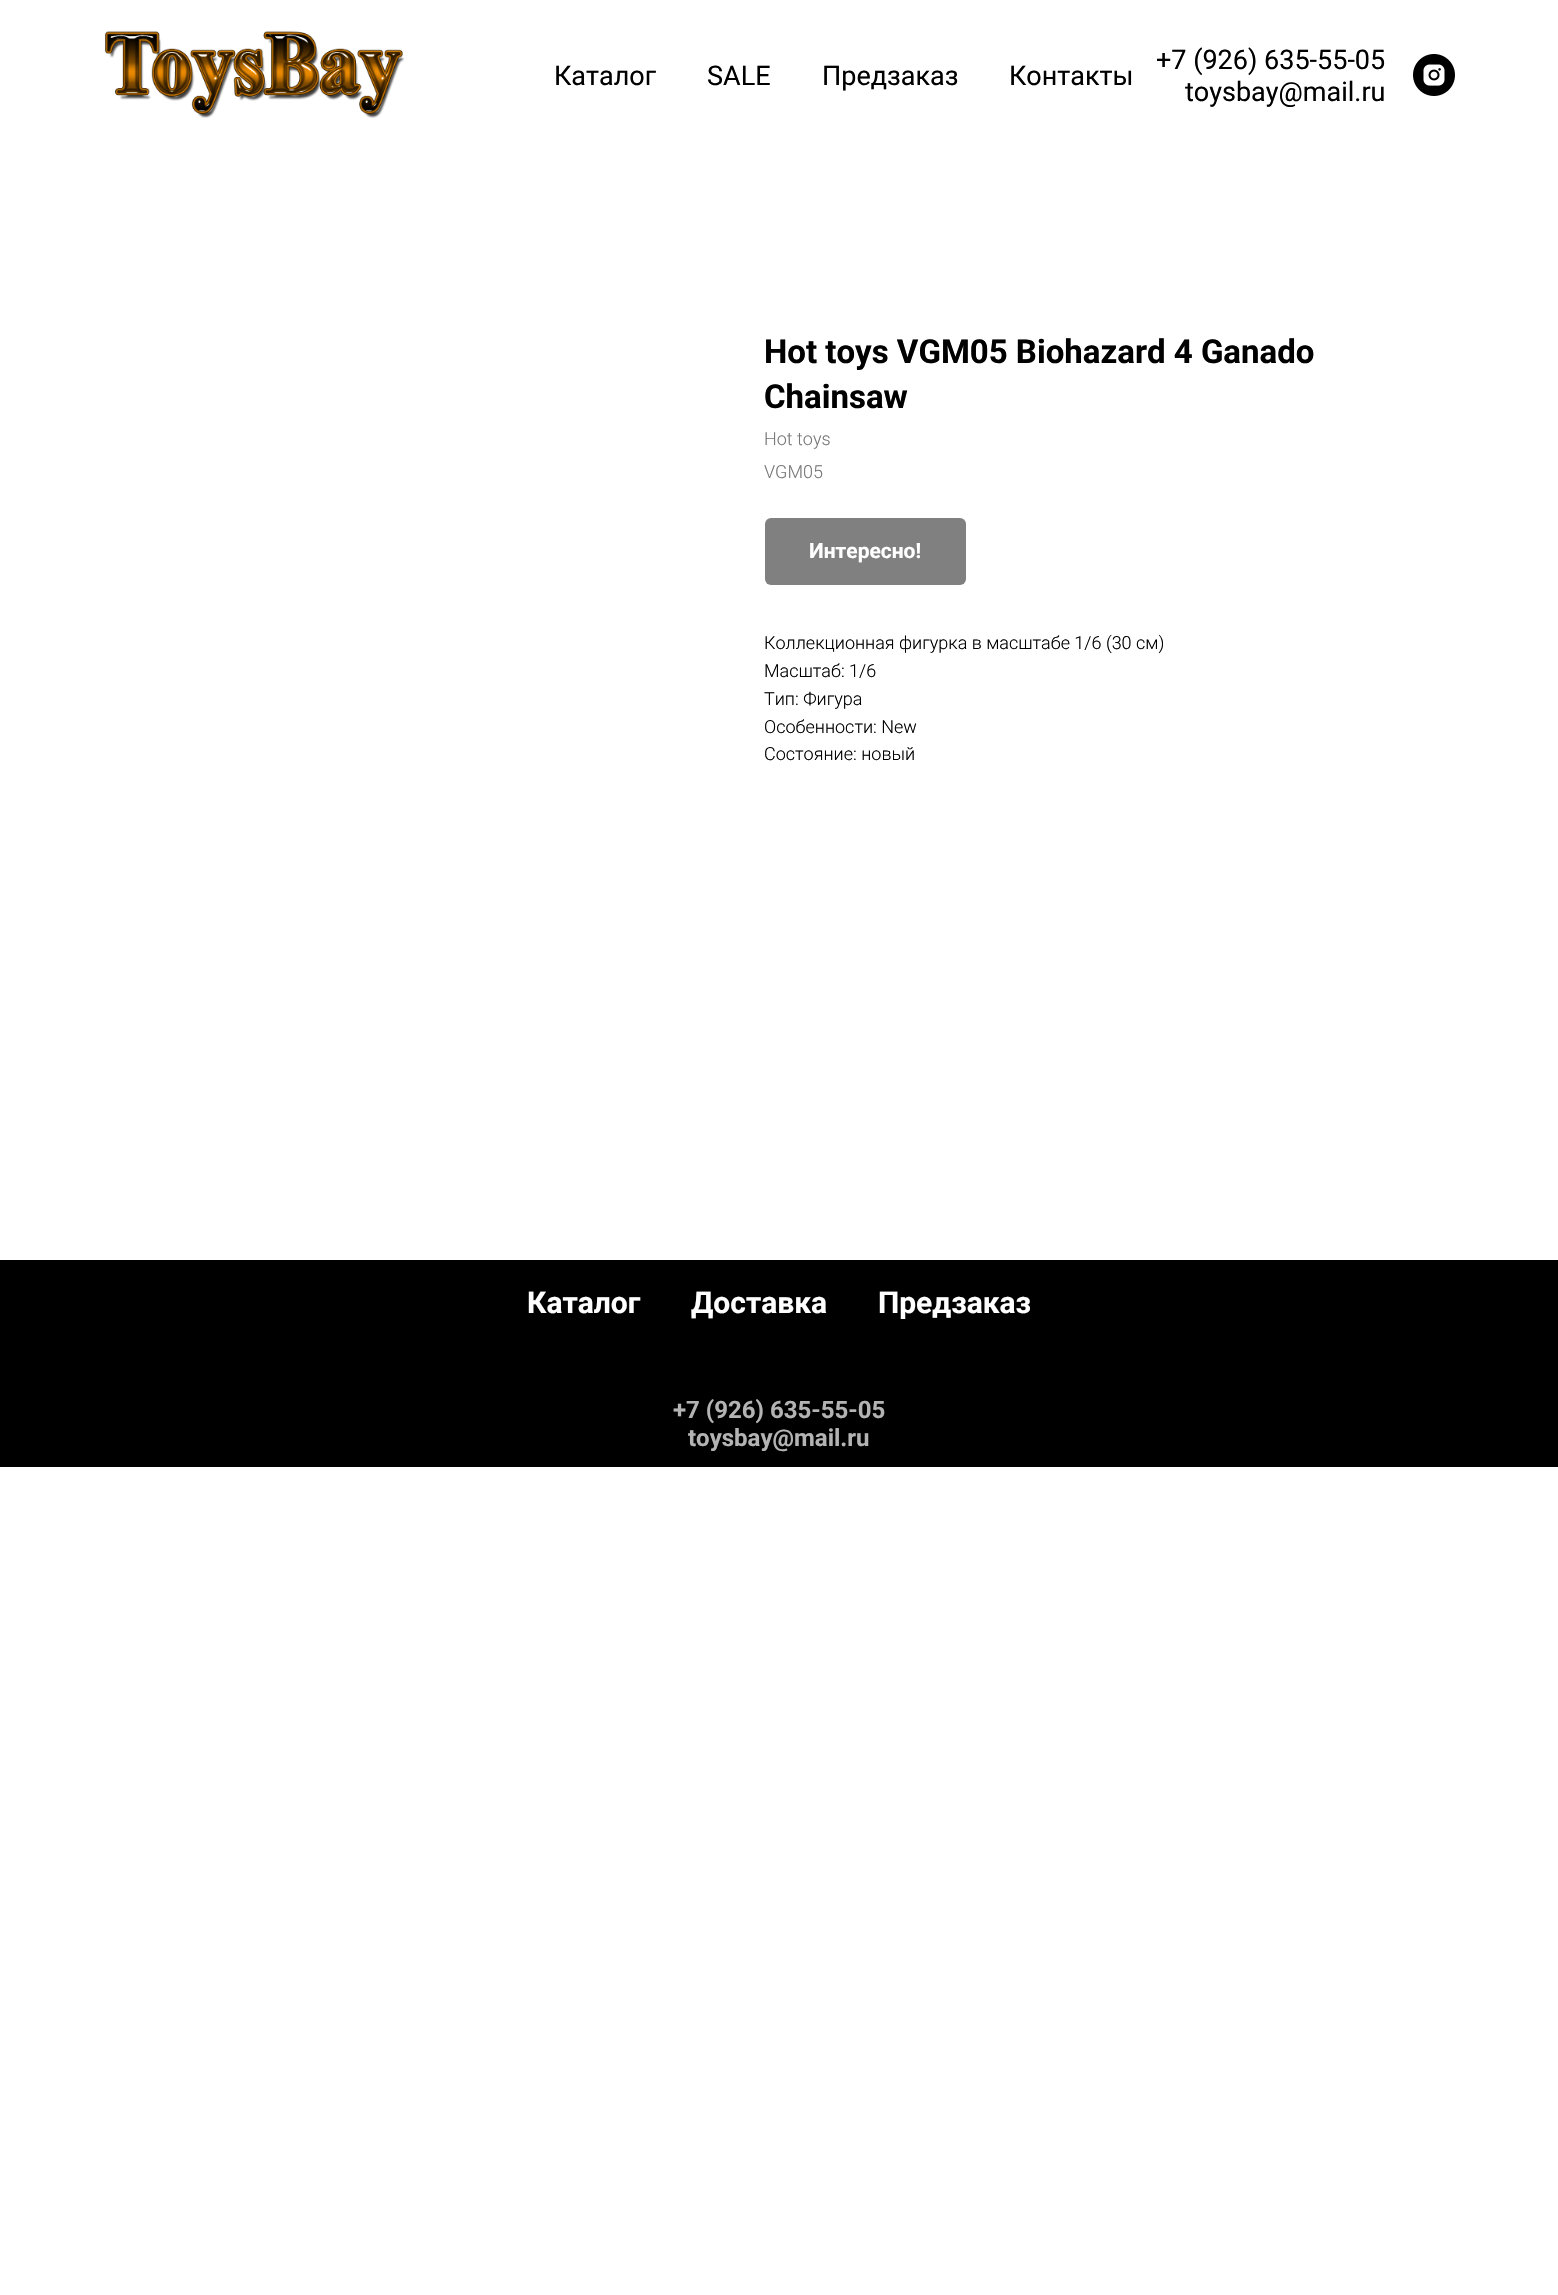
#include "include/core/SkBlurTypes.h"
#include "include/core/SkCanvas.h"
#include "include/core/SkData.h"
#include "include/core/SkFont.h"
#include "include/core/SkFontMgr.h"
#include "include/core/SkImage.h"
#include "include/core/SkMaskFilter.h"
#include "include/core/SkPaint.h"
#include "include/core/SkPathBuilder.h"
#include "include/core/SkTextBlob.h"
#include "include/effects/SkDashPathEffect.h"
#include "include/effects/SkGradientShader.h"
#include "include/utils/SkParsePath.h"

extern sk_sp<SkFontMgr> fontMgr;

static SkFont font(const char* family, int weight, float size, bool italic = false) {
    SkFontStyle style(weight, SkFontStyle::kNormal_Width,
        italic ? SkFontStyle::kItalic_Slant : SkFontStyle::kUpright_Slant);
    SkFont result(fontMgr->matchFamilyStyle(family, style), size);
    result.setSubpixel(true);
    return result;
}

static void drawLabel(SkCanvas* canvas, const char* s, float x, float y, const SkFont& font, SkColor color) {
    SkPaint ink(SkColor4f::FromColor(color));
    ink.setAntiAlias(true);
    canvas->drawString(s, x, y, font, ink);
}

static void fillRect(SkCanvas* canvas, float x, float y, float w, float h, SkColor color) {
    SkPaint ink(SkColor4f::FromColor(color));
    ink.setAntiAlias(true);
    canvas->drawRect(SkRect::MakeXYWH(x, y, w, h), ink);
}

static void fillRRect(SkCanvas* canvas, float x, float y, float w, float h, float radius, SkColor color) {
    SkPaint ink(SkColor4f::FromColor(color));
    ink.setAntiAlias(true);
    canvas->drawRoundRect(SkRect::MakeXYWH(x, y, w, h), radius, radius, ink);
}

static void drawPhoto(SkCanvas* canvas, const char* path, float x, float y, float w, float h) {
    auto image = SkImages::DeferredFromEncodedData(SkData::MakeFromFileName(path));
    canvas->drawImageRect(image, SkRect::MakeXYWH(x, y, w, h), SkSamplingOptions());
}

void draw(SkCanvas* canvas) {
    SkPaint paint;
    paint.setAntiAlias(true);
    canvas->clear(0xFFFFFFFF);
    drawPhoto(canvas, "assets/img1.png", 105, 31, 300, 87);
    SkFont font1 = font("Roboto", 400, 27);
    drawLabel(canvas, "Каталог", 554, 85, font1, 0xFF000000);
    drawLabel(canvas, "SALE", 707, 85, font1, 0xFF000000);
    drawLabel(canvas, "Предзаказ", 822, 85, font1, 0xFF000000);
    drawLabel(canvas, "Контакты", 1009, 85, font1, 0xFF000000);
    drawLabel(canvas, "+7 (926) 635-55-05", 1156, 69, font1, 0xFF000000);
    drawLabel(canvas, "toysbay@mail.ru", 1185, 101, font1, 0xFF000000);
    drawPhoto(canvas, "assets/img2.png", 1413, 54, 42, 42);
    SkFont font2 = font("Roboto", 700, 33);
    drawLabel(canvas, "Hot toys VGM05 Biohazard 4 Ganado", 764, 363, font2, 0xFF000000);
    drawLabel(canvas, "Chainsaw", 764, 408, font2, 0xFF000000);
    SkFont font3 = font("Roboto", 300, 18);
    drawLabel(canvas, "Hot toys", 764, 445, font3, 0xFF777777);
    drawLabel(canvas, "VGM05", 764, 478, font3, 0xFF777777);
    fillRRect(canvas, 765, 518, 201, 67, 6, 0xFF808080);
    SkFont font4 = font("Roboto", 700, 21);
    drawLabel(canvas, "Интересно!", 809, 558, font4, 0xFFFFFFFF);
    drawLabel(canvas, "Коллекционная фигурка в масштабе 1/6 (30 см)", 764, 649, font3, 0xFF000000);
    drawLabel(canvas, "Масштаб: 1/6", 764, 677, font3, 0xFF000000);
    drawLabel(canvas, "Тип: Фигура", 764, 705, font3, 0xFF000000);
    drawLabel(canvas, "Особенности: New", 764, 733, font3, 0xFF000000);
    drawLabel(canvas, "Состояние: новый", 764, 760, font3, 0xFF000000);
    fillRect(canvas, 0, 1260, 1558, 207, 0xFF000000);
    SkFont font5 = font("Roboto", 700, 30);
    drawLabel(canvas, "Каталог", 527, 1313, font5, 0xFFFFFFFF);
    drawLabel(canvas, "Доставка", 691, 1313, font5, 0xFFFFFFFF);
    drawLabel(canvas, "Предзаказ", 878, 1313, font5, 0xFFFFFFFF);
    SkFont font6 = font("Roboto", 700, 24);
    drawLabel(canvas, "+7 (926) 635-55-05", 673, 1418, font6, 0xFFB3B3B3);
    drawLabel(canvas, "toysbay@mail.ru", 688, 1446, font6, 0xFFB3B3B3);
}
